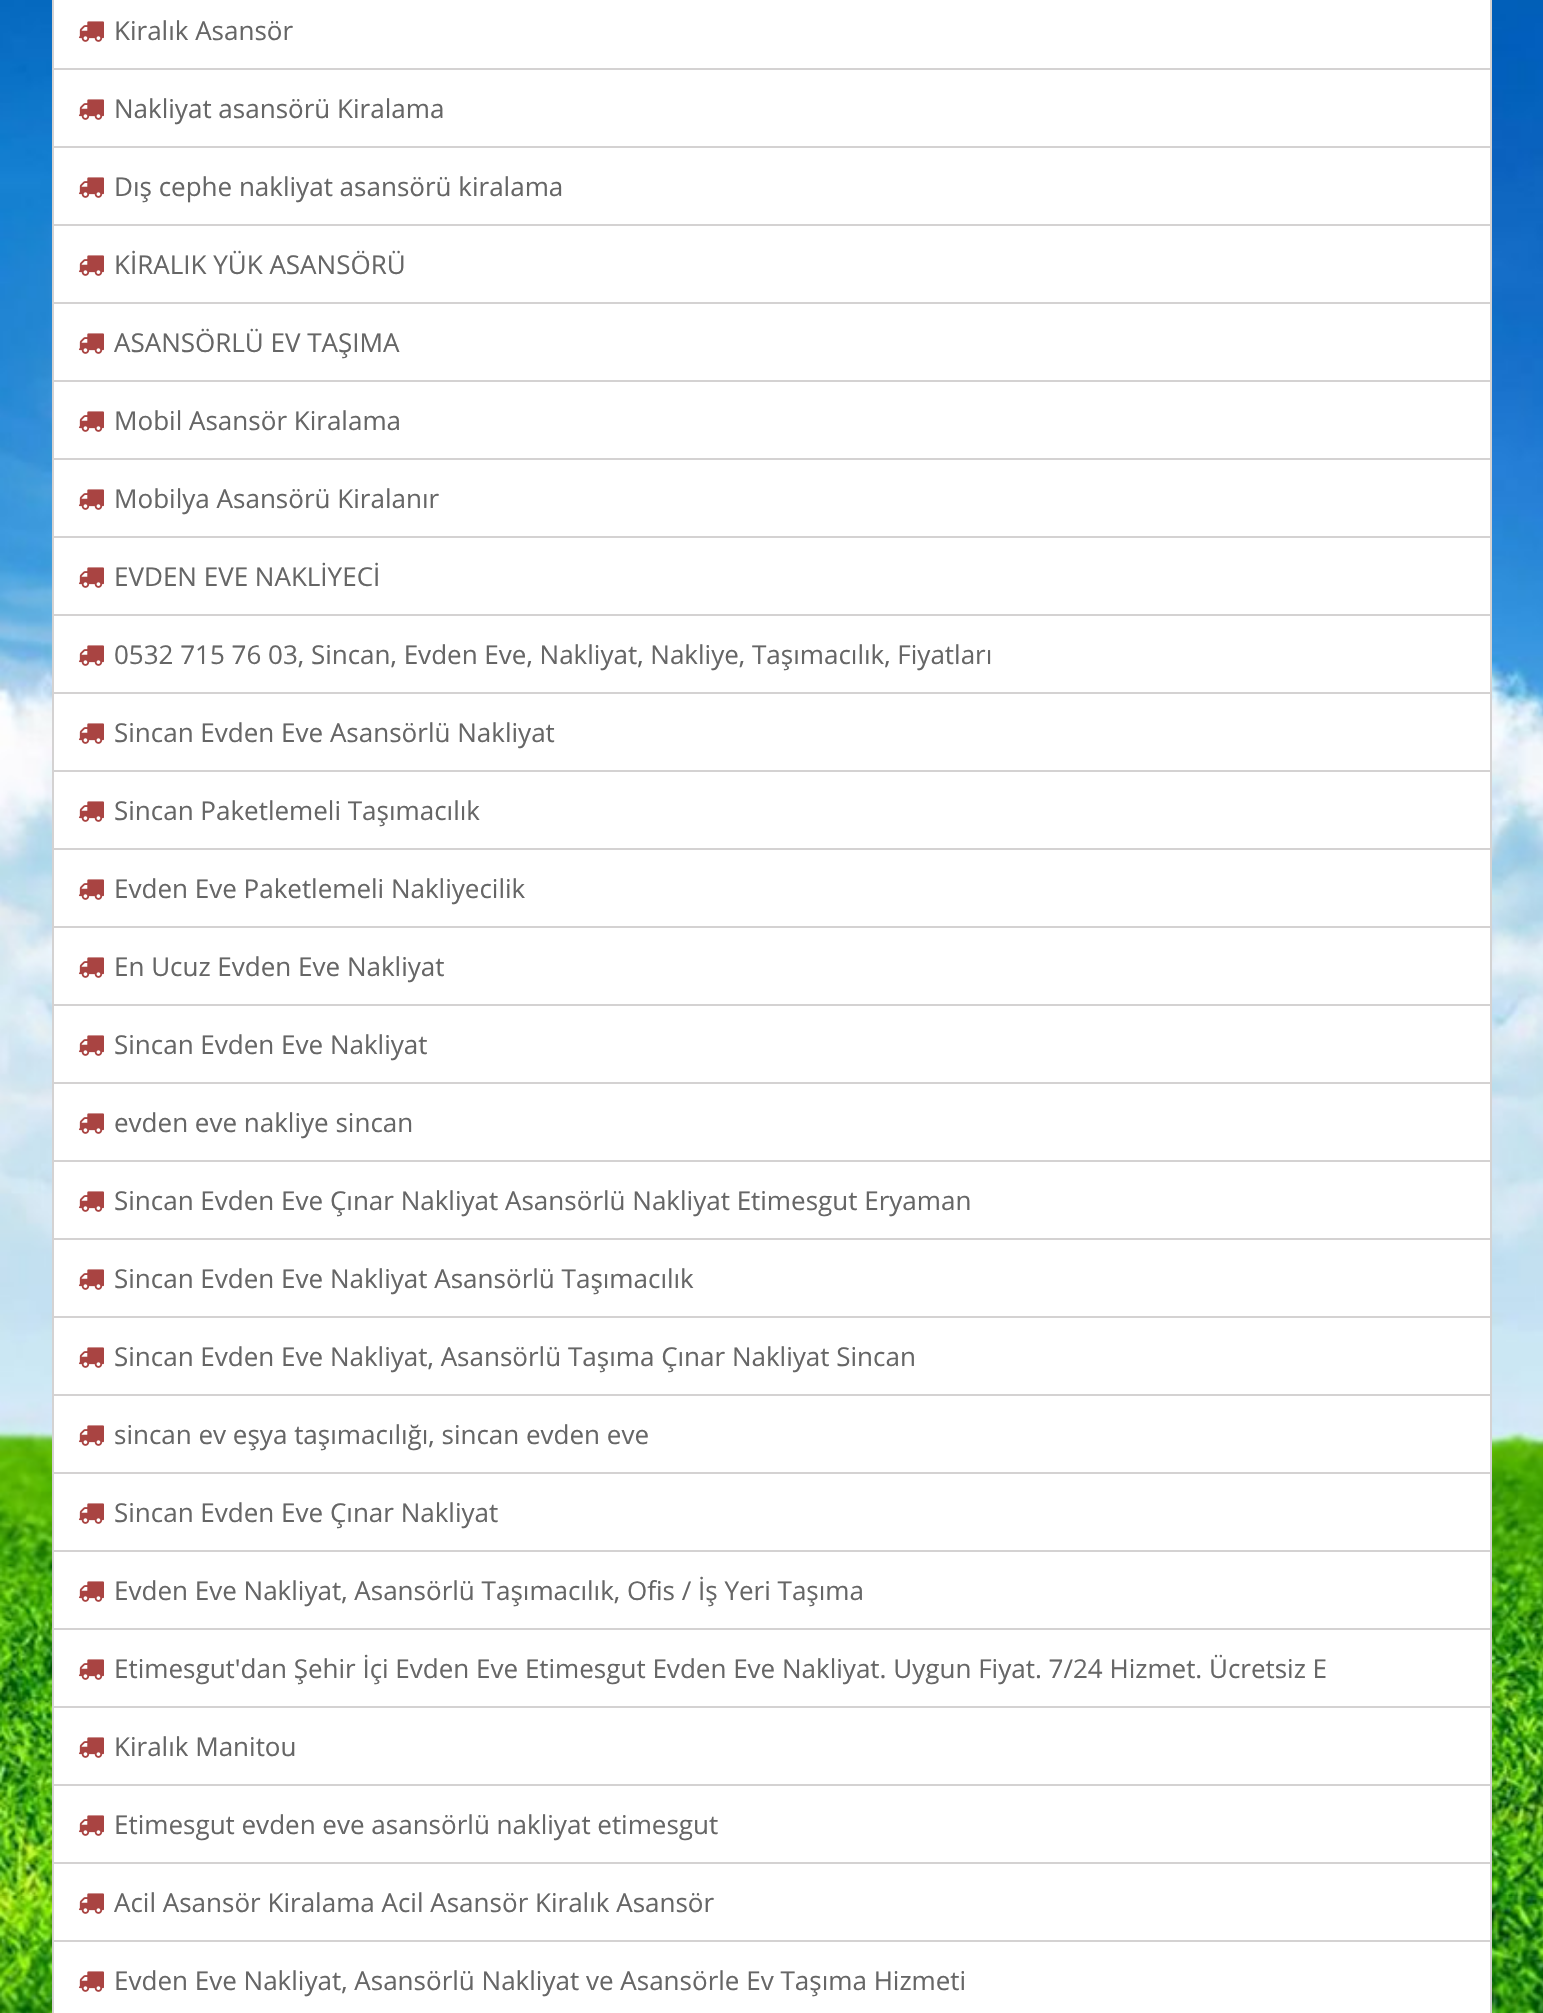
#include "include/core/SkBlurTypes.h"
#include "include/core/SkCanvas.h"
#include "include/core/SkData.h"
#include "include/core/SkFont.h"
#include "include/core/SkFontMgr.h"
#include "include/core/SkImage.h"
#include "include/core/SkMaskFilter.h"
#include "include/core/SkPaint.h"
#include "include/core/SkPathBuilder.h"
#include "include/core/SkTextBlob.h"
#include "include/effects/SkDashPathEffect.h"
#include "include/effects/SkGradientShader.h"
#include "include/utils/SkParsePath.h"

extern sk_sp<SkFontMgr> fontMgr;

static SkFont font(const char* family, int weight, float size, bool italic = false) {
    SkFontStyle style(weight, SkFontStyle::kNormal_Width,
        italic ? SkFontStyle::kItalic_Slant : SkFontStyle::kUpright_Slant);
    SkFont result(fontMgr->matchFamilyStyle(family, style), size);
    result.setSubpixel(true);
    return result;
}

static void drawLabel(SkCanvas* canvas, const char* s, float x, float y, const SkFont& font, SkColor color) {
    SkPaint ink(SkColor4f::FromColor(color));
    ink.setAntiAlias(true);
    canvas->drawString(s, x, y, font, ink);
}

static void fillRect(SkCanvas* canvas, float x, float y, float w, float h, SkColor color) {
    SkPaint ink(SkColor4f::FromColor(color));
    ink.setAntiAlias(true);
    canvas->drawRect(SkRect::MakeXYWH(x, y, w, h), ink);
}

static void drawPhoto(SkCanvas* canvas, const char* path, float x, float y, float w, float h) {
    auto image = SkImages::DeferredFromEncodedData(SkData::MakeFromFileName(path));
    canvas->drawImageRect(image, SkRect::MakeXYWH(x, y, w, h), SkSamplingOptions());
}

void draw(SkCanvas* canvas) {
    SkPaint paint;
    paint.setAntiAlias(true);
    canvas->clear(0xFFFFFFFF);
    drawPhoto(canvas, "assets/img1.png", 0, 0, 1543, 2013);
    paint.setColor(0xFFFFFFFF);
    canvas->drawRect(SkRect::MakeXYWH(53, -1, 1438, 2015), paint);
    paint.setStroke(true);
    paint.setStrokeWidth(2);
    paint.setColor(0xFFD4D2D2);
    canvas->drawRect(SkRect::MakeXYWH(53, -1, 1438, 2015), paint);
    fillRect(canvas, 54, 68, 1436, 2, 0xFFD4D2D2);
    drawPhoto(canvas, "assets/img2.png", 78, 21, 26, 21);
    SkFont font1 = font("Open Sans", 400, 26);
    drawLabel(canvas, "Kiralık Asansör", 114, 40, font1, 0xFF666666);
    fillRect(canvas, 54, 146, 1436, 2, 0xFFD4D2D2);
    drawPhoto(canvas, "assets/img2.png", 78, 99, 26, 21);
    drawLabel(canvas, "Nakliyat asansörü Kiralama", 114, 118, font1, 0xFF666666);
    fillRect(canvas, 54, 224, 1436, 2, 0xFFD4D2D2);
    drawPhoto(canvas, "assets/img2.png", 78, 177, 26, 21);
    drawLabel(canvas, "Dış cephe nakliyat asansörü kiralama", 114, 196, font1, 0xFF666666);
    fillRect(canvas, 54, 302, 1436, 2, 0xFFD4D2D2);
    drawPhoto(canvas, "assets/img2.png", 78, 255, 26, 21);
    drawLabel(canvas, "KİRALIK YÜK ASANSÖRÜ", 114, 274, font1, 0xFF666666);
    fillRect(canvas, 54, 380, 1436, 2, 0xFFD4D2D2);
    drawPhoto(canvas, "assets/img2.png", 78, 333, 26, 21);
    drawLabel(canvas, "ASANSÖRLÜ EV TAŞIMA", 114, 352, font1, 0xFF666666);
    fillRect(canvas, 54, 458, 1436, 2, 0xFFD4D2D2);
    drawPhoto(canvas, "assets/img2.png", 78, 411, 26, 21);
    drawLabel(canvas, "Mobil Asansör Kiralama", 114, 430, font1, 0xFF666666);
    fillRect(canvas, 54, 536, 1436, 2, 0xFFD4D2D2);
    drawPhoto(canvas, "assets/img2.png", 78, 489, 26, 21);
    drawLabel(canvas, "Mobilya Asansörü Kiralanır", 114, 508, font1, 0xFF666666);
    fillRect(canvas, 54, 614, 1436, 2, 0xFFD4D2D2);
    drawPhoto(canvas, "assets/img2.png", 78, 567, 26, 21);
    drawLabel(canvas, "EVDEN EVE NAKLİYECİ", 114, 586, font1, 0xFF666666);
    fillRect(canvas, 54, 692, 1436, 2, 0xFFD4D2D2);
    drawPhoto(canvas, "assets/img2.png", 78, 645, 26, 21);
    drawLabel(canvas, "0532 715 76 03, Sincan, Evden Eve, Nakliyat, Nakliye, Taşımacılık, Fiyatları", 114, 664, font1, 0xFF666666);
    fillRect(canvas, 54, 770, 1436, 2, 0xFFD4D2D2);
    drawPhoto(canvas, "assets/img2.png", 78, 723, 26, 21);
    drawLabel(canvas, "Sincan Evden Eve Asansörlü Nakliyat", 114, 742, font1, 0xFF666666);
    fillRect(canvas, 54, 848, 1436, 2, 0xFFD4D2D2);
    drawPhoto(canvas, "assets/img2.png", 78, 801, 26, 21);
    drawLabel(canvas, "Sincan Paketlemeli Taşımacılık", 114, 820, font1, 0xFF666666);
    fillRect(canvas, 54, 926, 1436, 2, 0xFFD4D2D2);
    drawPhoto(canvas, "assets/img2.png", 78, 879, 26, 21);
    drawLabel(canvas, "Evden Eve Paketlemeli Nakliyecilik", 114, 898, font1, 0xFF666666);
    fillRect(canvas, 54, 1004, 1436, 2, 0xFFD4D2D2);
    drawPhoto(canvas, "assets/img2.png", 78, 957, 26, 21);
    drawLabel(canvas, "En Ucuz Evden Eve Nakliyat", 114, 976, font1, 0xFF666666);
    fillRect(canvas, 54, 1082, 1436, 2, 0xFFD4D2D2);
    drawPhoto(canvas, "assets/img2.png", 78, 1035, 26, 21);
    drawLabel(canvas, "Sincan Evden Eve Nakliyat", 114, 1054, font1, 0xFF666666);
    fillRect(canvas, 54, 1160, 1436, 2, 0xFFD4D2D2);
    drawPhoto(canvas, "assets/img2.png", 78, 1113, 26, 21);
    drawLabel(canvas, "evden eve nakliye sincan", 114, 1132, font1, 0xFF666666);
    fillRect(canvas, 54, 1238, 1436, 2, 0xFFD4D2D2);
    drawPhoto(canvas, "assets/img2.png", 78, 1191, 26, 21);
    drawLabel(canvas, "Sincan Evden Eve Çınar Nakliyat Asansörlü Nakliyat Etimesgut Eryaman", 114, 1210, font1, 0xFF666666);
    fillRect(canvas, 54, 1316, 1436, 2, 0xFFD4D2D2);
    drawPhoto(canvas, "assets/img2.png", 78, 1269, 26, 21);
    drawLabel(canvas, "Sincan Evden Eve Nakliyat Asansörlü Taşımacılık", 114, 1288, font1, 0xFF666666);
    fillRect(canvas, 54, 1394, 1436, 2, 0xFFD4D2D2);
    drawPhoto(canvas, "assets/img2.png", 78, 1347, 26, 21);
    drawLabel(canvas, "Sincan Evden Eve Nakliyat, Asansörlü Taşıma Çınar Nakliyat Sincan", 114, 1366, font1, 0xFF666666);
    fillRect(canvas, 54, 1472, 1436, 2, 0xFFD4D2D2);
    drawPhoto(canvas, "assets/img2.png", 78, 1425, 26, 21);
    drawLabel(canvas, "sincan ev eşya taşımacılığı, sincan evden eve", 114, 1444, font1, 0xFF666666);
    fillRect(canvas, 54, 1550, 1436, 2, 0xFFD4D2D2);
    drawPhoto(canvas, "assets/img2.png", 78, 1503, 26, 21);
    drawLabel(canvas, "Sincan Evden Eve Çınar Nakliyat", 114, 1522, font1, 0xFF666666);
    fillRect(canvas, 54, 1628, 1436, 2, 0xFFD4D2D2);
    drawPhoto(canvas, "assets/img2.png", 78, 1581, 26, 21);
    drawLabel(canvas, "Evden Eve Nakliyat, Asansörlü Taşımacılık, Ofis / İş Yeri Taşıma", 114, 1600, font1, 0xFF666666);
    fillRect(canvas, 54, 1706, 1436, 2, 0xFFD4D2D2);
    drawPhoto(canvas, "assets/img2.png", 78, 1659, 26, 21);
    drawLabel(canvas, "Etimesgut'dan Şehir İçi Evden Eve Etimesgut Evden Eve Nakliyat. Uygun Fiyat. 7/24 Hizmet. Ücretsiz E", 114, 1678, font1, 0xFF666666);
    fillRect(canvas, 54, 1784, 1436, 2, 0xFFD4D2D2);
    drawPhoto(canvas, "assets/img2.png", 78, 1737, 26, 21);
    drawLabel(canvas, "Kiralık Manitou", 114, 1756, font1, 0xFF666666);
    fillRect(canvas, 54, 1862, 1436, 2, 0xFFD4D2D2);
    drawPhoto(canvas, "assets/img2.png", 78, 1815, 26, 21);
    drawLabel(canvas, "Etimesgut evden eve asansörlü nakliyat etimesgut", 114, 1834, font1, 0xFF666666);
    fillRect(canvas, 54, 1940, 1436, 2, 0xFFD4D2D2);
    drawPhoto(canvas, "assets/img2.png", 78, 1893, 26, 21);
    drawLabel(canvas, "Acil Asansör Kiralama Acil Asansör Kiralık Asansör", 114, 1912, font1, 0xFF666666);
    drawPhoto(canvas, "assets/img2.png", 78, 1971, 26, 21);
    drawLabel(canvas, "Evden Eve Nakliyat, Asansörlü Nakliyat ve Asansörle Ev Taşıma Hizmeti", 114, 1990, font1, 0xFF666666);
}
